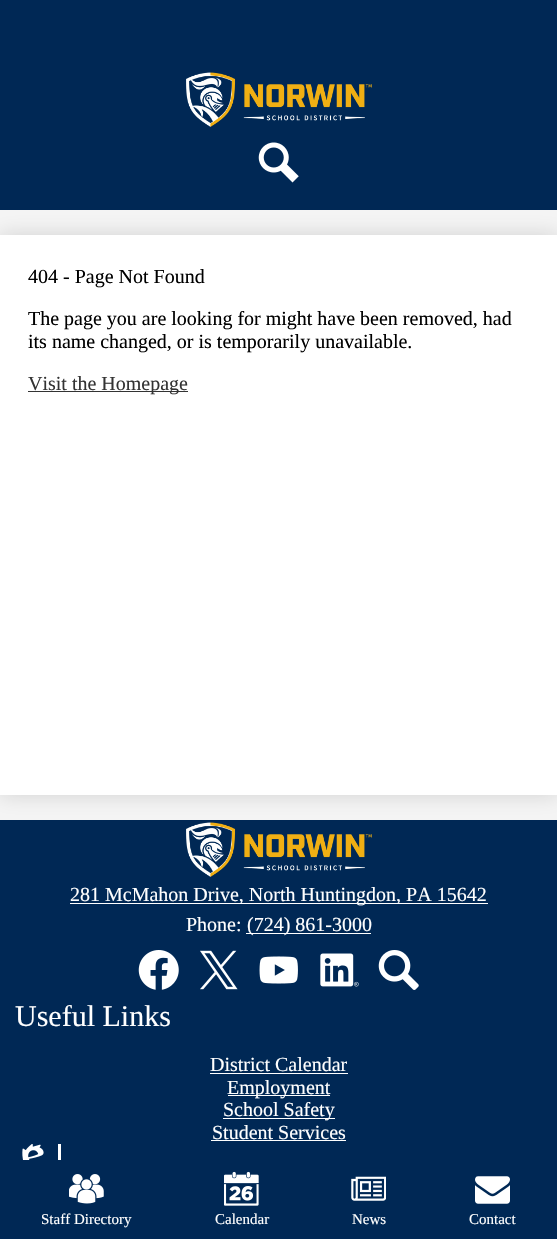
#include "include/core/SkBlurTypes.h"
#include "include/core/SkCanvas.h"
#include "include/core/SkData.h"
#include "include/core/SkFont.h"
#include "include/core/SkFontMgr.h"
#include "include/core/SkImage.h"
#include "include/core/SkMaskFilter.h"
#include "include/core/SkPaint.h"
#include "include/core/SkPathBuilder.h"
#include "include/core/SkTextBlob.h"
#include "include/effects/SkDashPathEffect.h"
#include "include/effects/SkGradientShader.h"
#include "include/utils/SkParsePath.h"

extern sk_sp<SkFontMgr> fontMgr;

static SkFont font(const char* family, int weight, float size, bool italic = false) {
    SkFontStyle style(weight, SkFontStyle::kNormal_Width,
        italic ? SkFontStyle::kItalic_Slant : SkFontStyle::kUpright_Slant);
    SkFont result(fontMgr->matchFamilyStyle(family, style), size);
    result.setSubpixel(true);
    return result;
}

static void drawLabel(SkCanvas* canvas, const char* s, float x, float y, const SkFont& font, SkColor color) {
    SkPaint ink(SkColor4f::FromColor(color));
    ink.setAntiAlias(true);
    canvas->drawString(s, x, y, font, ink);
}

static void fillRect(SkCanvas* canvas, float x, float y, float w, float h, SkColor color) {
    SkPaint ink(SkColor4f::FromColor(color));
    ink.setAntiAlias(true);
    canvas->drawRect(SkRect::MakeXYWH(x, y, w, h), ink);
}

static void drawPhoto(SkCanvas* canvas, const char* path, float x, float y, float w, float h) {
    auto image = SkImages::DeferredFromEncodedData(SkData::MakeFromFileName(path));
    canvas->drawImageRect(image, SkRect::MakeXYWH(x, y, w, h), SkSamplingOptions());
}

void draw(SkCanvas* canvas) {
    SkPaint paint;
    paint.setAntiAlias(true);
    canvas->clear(0xFFF5F5F5);
    fillRect(canvas, 0, 0, 557, 50, 0xFF002855);
    fillRect(canvas, 0, 820, 557, 419, 0xFF002855);
    drawPhoto(canvas, "assets/img3.png", 186, 822, 186, 55);
    paint.setColor(0x26000000);
    paint.setMaskFilter(SkMaskFilter::MakeBlur(kNormal_SkBlurStyle, 10));
    canvas->drawRect(SkRect::MakeXYWH(0, 235, 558, 560), paint);
    paint.setMaskFilter(nullptr);
    fillRect(canvas, 0, 50, 557, 160, 0xFF002855);
    drawPhoto(canvas, "assets/img1.png", 186, 72, 186, 55);
    drawPhoto(canvas, "assets/img2.png", 258, 142, 41, 41);
    fillRect(canvas, 0, 235, 557, 560, 0xFFFFFFFF);
    SkFont font1 = font("Liberation Serif", 400, 20);
    drawLabel(canvas, "404 - Page Not Found", 28, 283, font1, 0xFF000000);
    drawLabel(canvas, "The page you are looking for might have been removed, had", 28, 325, font1, 0xFF000000);
    drawLabel(canvas, "its name changed, or is temporarily unavailable.", 28, 348, font1, 0xFF000000);
    fillRect(canvas, 28, 391, 160, 1, 0xFF333333);
    drawLabel(canvas, "Visit the Homepage", 28, 390, font1, 0xFF333333);
    fillRect(canvas, 70, 903, 418, 1, 0xFFFFFFFF);
    drawLabel(canvas, "281 McMahon Drive, North Huntingdon, PA 15642", 70, 901, font1, 0xFFFFFFFF);
    drawLabel(canvas, "Phone:", 186, 931, font1, 0xFFFFFFFF);
    fillRect(canvas, 246, 933, 125, 1, 0xFFFFFFFF);
    drawLabel(canvas, "(724) 861-3000", 247, 931, font1, 0xFFFFFFFF);
    drawPhoto(canvas, "assets/img4.png", 138, 950, 41, 40);
    drawPhoto(canvas, "assets/img5.png", 200, 950, 38, 40);
    drawPhoto(canvas, "assets/img6.png", 259, 956, 39, 28);
    drawPhoto(canvas, "assets/img7.png", 320, 953, 39, 34);
    drawPhoto(canvas, "assets/img8.png", 378, 950, 41, 40);
    SkFont font2 = font("Liberation Serif", 400, 30);
    drawLabel(canvas, "Useful Links", 15, 1026, font2, 0xFFFFFFFF);
    drawLabel(canvas, "District Calendar", 210, 1071, font1, 0xFFFFFFFF);
    fillRect(canvas, 210, 1073, 138, 1, 0xFFFFFFFF);
    fillRect(canvas, 228, 1095, 102, 1, 0xFFFFFFFF);
    drawLabel(canvas, "Employment", 227, 1094, font1, 0xFFFFFFFF);
    fillRect(canvas, 223, 1118, 112, 1, 0xFFFFFFFF);
    drawLabel(canvas, "School Safety", 223, 1116, font1, 0xFFFFFFFF);
    drawLabel(canvas, "Student Services", 212, 1139, font1, 0xFFFFFFFF);
    fillRect(canvas, 211, 1140, 135, 1, 0xFFFFFFFF);
    fillRect(canvas, 58, 1144, 3, 16, 0xFFFFFFFF);
    drawPhoto(canvas, "assets/img9.png", 22, 1144, 22, 16);
    drawPhoto(canvas, "assets/img10.png", 69, 1174, 35, 30);
    SkFont font3 = font("Liberation Serif", 400, 15);
    drawLabel(canvas, "Staff Directory", 41, 1224, font3, 0xFFFFFFFF);
    drawPhoto(canvas, "assets/img11.png", 224, 1171, 35, 35);
    drawLabel(canvas, "Calendar", 215, 1224, font3, 0xFFFFFFFF);
    drawPhoto(canvas, "assets/img12.png", 351, 1176, 35, 25);
    drawLabel(canvas, "News", 352, 1224, font3, 0xFFFFFFFF);
    drawPhoto(canvas, "assets/img13.png", 475, 1176, 35, 28);
    drawLabel(canvas, "Contact", 469, 1224, font3, 0xFFFFFFFF);
}
